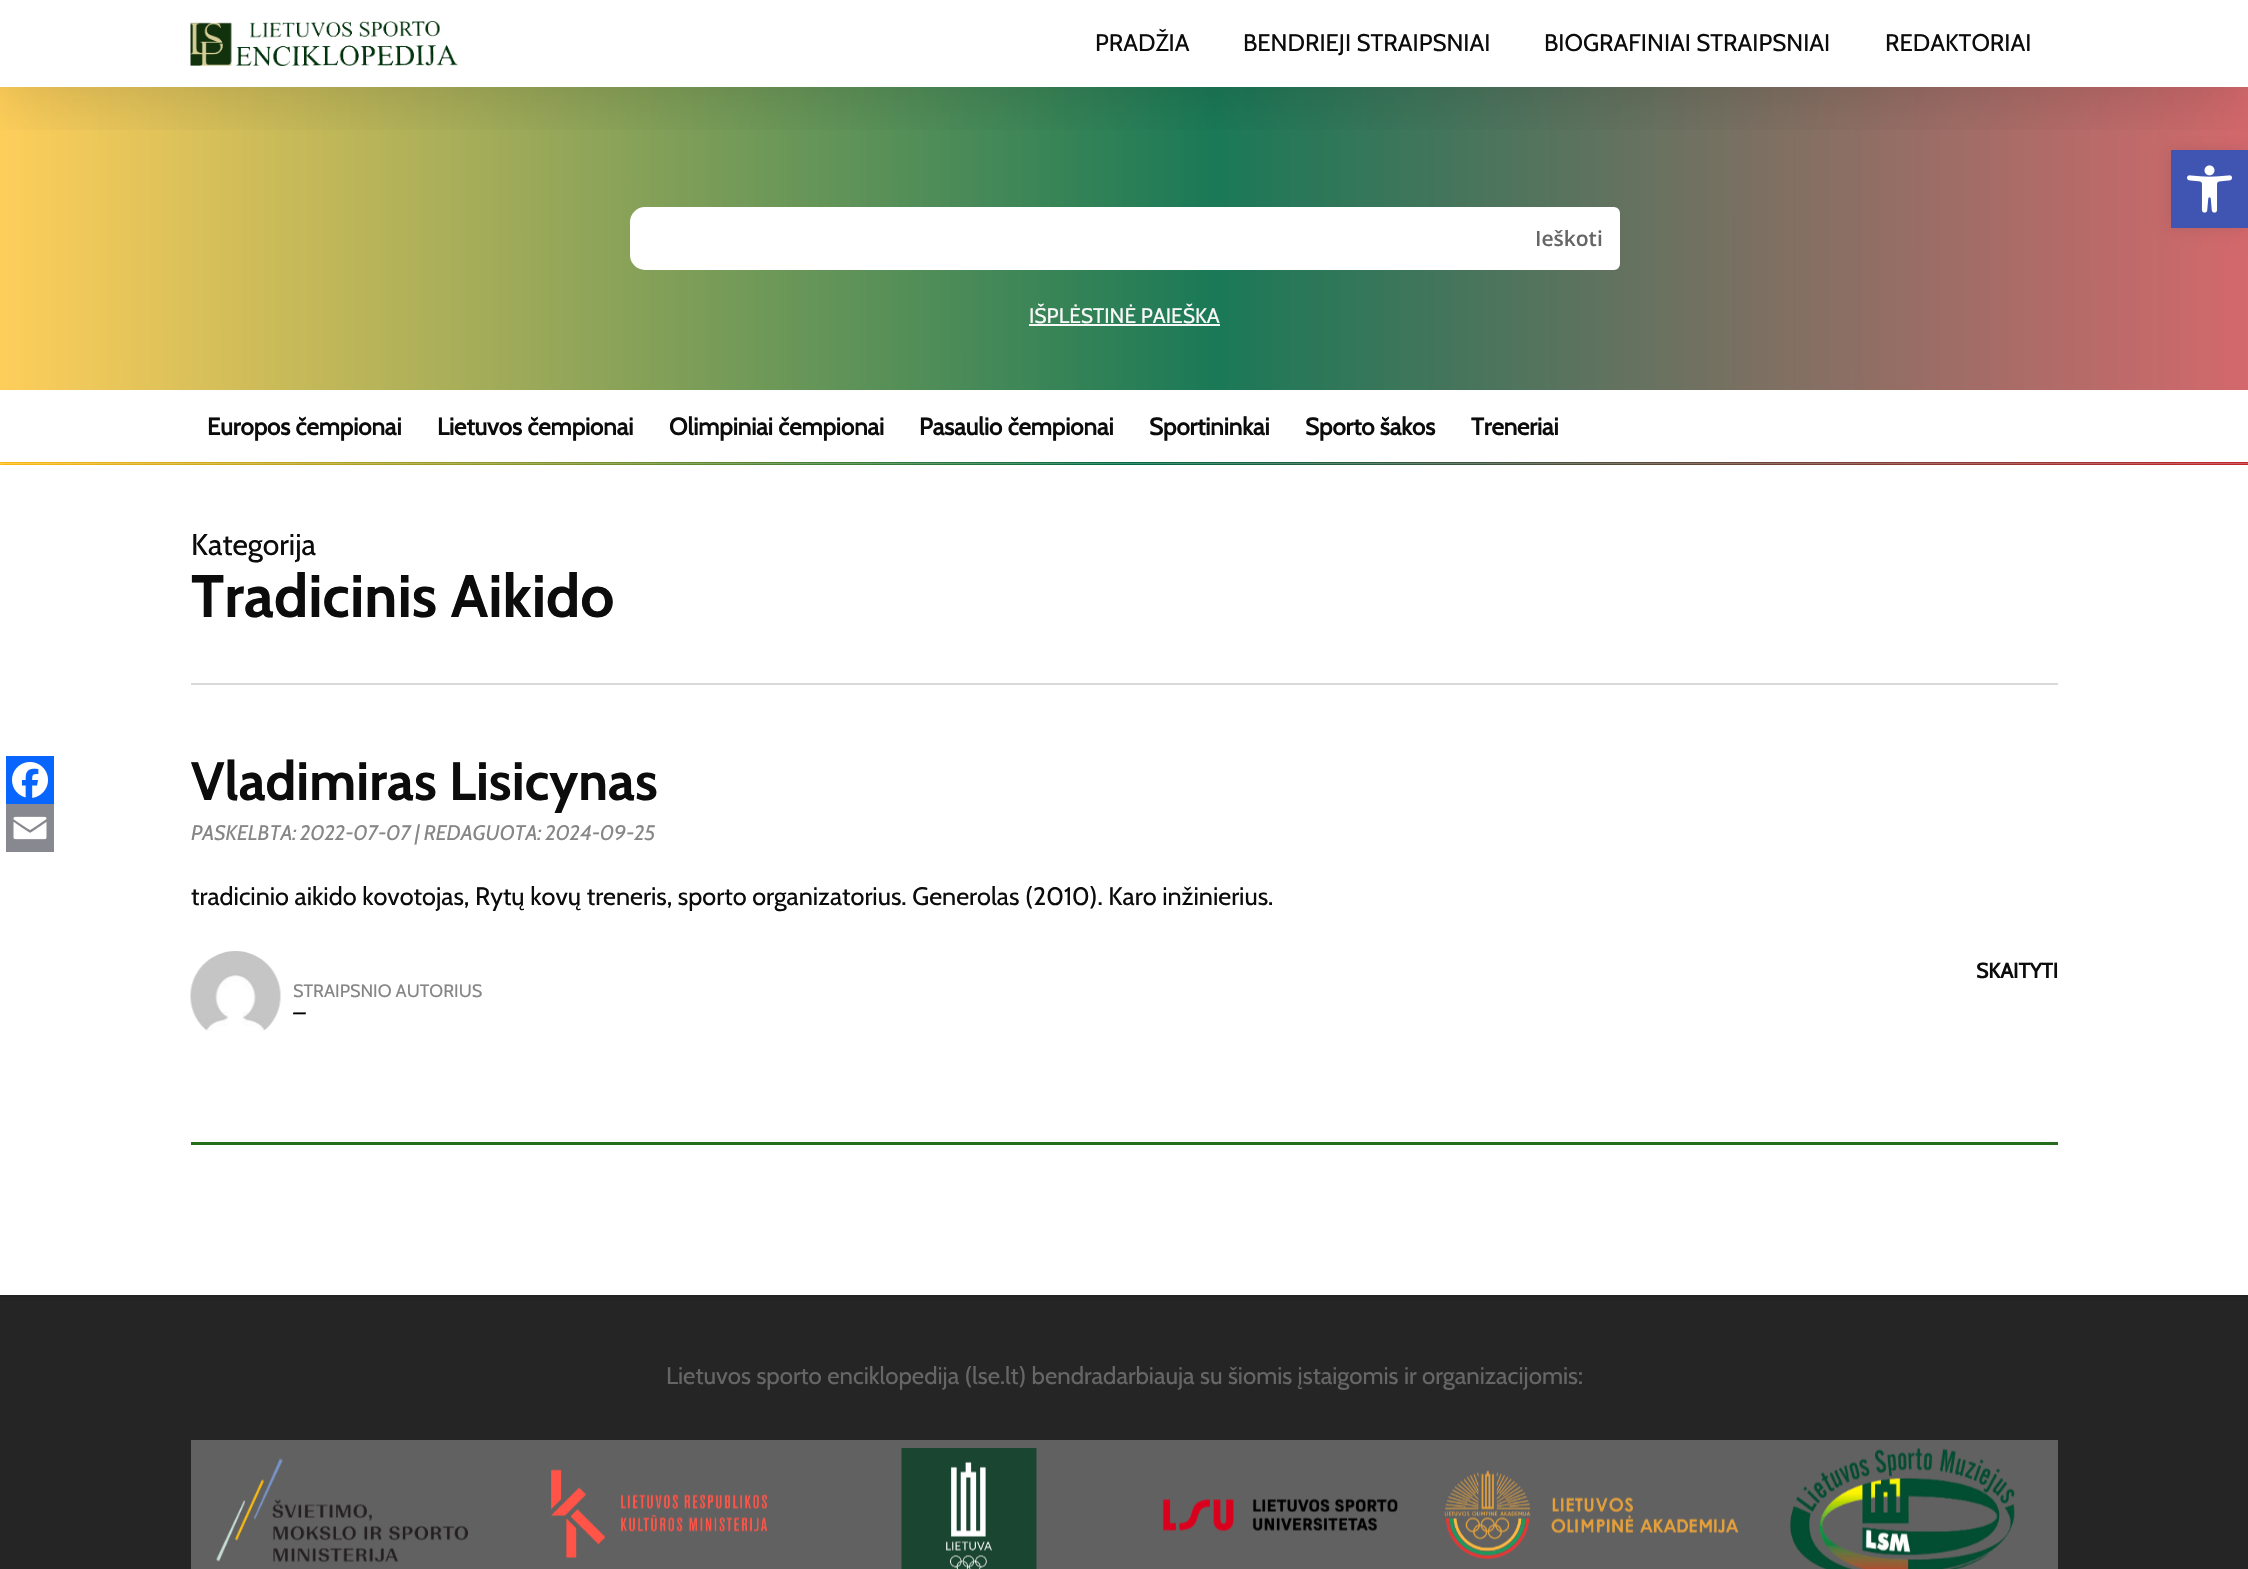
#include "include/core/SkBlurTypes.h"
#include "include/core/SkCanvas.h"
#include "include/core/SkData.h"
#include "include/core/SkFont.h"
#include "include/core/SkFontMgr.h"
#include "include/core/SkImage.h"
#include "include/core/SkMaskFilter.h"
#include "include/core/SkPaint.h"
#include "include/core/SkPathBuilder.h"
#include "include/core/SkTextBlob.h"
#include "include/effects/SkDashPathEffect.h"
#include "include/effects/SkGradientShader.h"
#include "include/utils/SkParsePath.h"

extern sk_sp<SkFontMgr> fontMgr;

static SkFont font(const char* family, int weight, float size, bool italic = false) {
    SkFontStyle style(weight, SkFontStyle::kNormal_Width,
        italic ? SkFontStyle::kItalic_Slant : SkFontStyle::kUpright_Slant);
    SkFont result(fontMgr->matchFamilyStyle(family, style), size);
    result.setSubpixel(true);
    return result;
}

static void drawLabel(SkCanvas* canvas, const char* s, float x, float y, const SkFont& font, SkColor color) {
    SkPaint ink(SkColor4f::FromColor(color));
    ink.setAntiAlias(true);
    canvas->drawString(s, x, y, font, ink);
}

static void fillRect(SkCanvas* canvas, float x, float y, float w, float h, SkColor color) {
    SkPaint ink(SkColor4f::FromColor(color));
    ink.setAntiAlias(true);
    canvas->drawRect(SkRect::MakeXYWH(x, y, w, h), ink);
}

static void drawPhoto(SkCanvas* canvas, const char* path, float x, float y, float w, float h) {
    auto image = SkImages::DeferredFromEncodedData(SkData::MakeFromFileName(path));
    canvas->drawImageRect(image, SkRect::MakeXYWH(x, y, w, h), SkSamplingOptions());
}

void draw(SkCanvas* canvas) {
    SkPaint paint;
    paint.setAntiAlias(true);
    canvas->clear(0xFFFFFFFF);
    {
        const SkColor colors[] = {0xFFFECE5A, 0xFF1A7957, 0xFFD4686C};
        const float stops[] = {0, 0.54f, 1};
        const SkPoint ends[] = {{0, 239}, {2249, 238}};
        paint.setShader(SkGradientShader::MakeLinear(ends, colors, stops, 3, SkTileMode::kClamp));
        paint.setAlpha(255);
    }
    canvas->drawRect(SkRect::MakeXYWH(0, 87, 2248, 303), paint);
    canvas->save();
    canvas->clipRect(SkRect::MakeXYWH(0, 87, 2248, 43));
    paint.setShader(nullptr);
    paint.setColor(0x26000000);
    paint.setMaskFilter(SkMaskFilter::MakeBlur(kNormal_SkBlurStyle, 34));
    canvas->drawRect(SkRect::MakeXYWH(0, 5, 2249, 87), paint);
    paint.setMaskFilter(nullptr);
    canvas->restore();
    drawPhoto(canvas, "assets/img1.png", 190, 21, 268, 45);
    SkFont font1 = font("Cabin", 400, 24);
    drawLabel(canvas, "PRADŽIA", 1095, 51, font1, 0xFF0C0C0C);
    drawLabel(canvas, "BENDRIEJI STRAIPSNIAI", 1243, 51, font1, 0xFF0C0C0C);
    drawLabel(canvas, "BIOGRAFINIAI STRAIPSNIAI", 1544, 51, font1, 0xFF0C0C0C);
    drawLabel(canvas, "REDAKTORIAI", 1885, 51, font1, 0xFF0C0C0C);
    paint.setColor(0xFFFFFFFF);
    canvas->drawRoundRect(SkRect::MakeXYWH(631, 208, 988, 61), 14, 14, paint);
    paint.setStroke(true);
    paint.setStrokeWidth(2);
    canvas->drawRoundRect(SkRect::MakeXYWH(631, 208, 988, 61), 14, 14, paint);
    paint.setStroke(false);
    canvas->drawRoundRect(SkRect::MakeXYWH(1519, 208, 100, 61), 5, 5, paint);
    paint.setStroke(true);
    canvas->drawRoundRect(SkRect::MakeXYWH(1519, 208, 100, 61), 5, 5, paint);
    SkFont font2 = font("Open Sans", 600, 21);
    drawLabel(canvas, "Ieškoti", 1535, 246, font2, 0xFF666666);
    SkFont font3 = font("Cabin", 400, 21);
    drawLabel(canvas, "IŠPLĖSTINĖ PAIEŠKA", 1029, 323, font3, 0xFFF8F8F8);
    fillRect(canvas, 1029, 324, 191, 2, 0xFFF8F8F8);
    SkFont font4 = font("Cabin", 700, 24);
    drawLabel(canvas, "Europos čempionai", 207, 435, font4, 0xFF0C0C0C);
    drawLabel(canvas, "Lietuvos čempionai", 437, 435, font4, 0xFF0C0C0C);
    drawLabel(canvas, "Olimpiniai čempionai", 669, 435, font4, 0xFF0C0C0C);
    drawLabel(canvas, "Pasaulio čempionai", 919, 435, font4, 0xFF0C0C0C);
    drawLabel(canvas, "Sportininkai", 1149, 435, font4, 0xFF0C0C0C);
    drawLabel(canvas, "Sporto šakos", 1305, 435, font4, 0xFF0C0C0C);
    drawLabel(canvas, "Treneriai", 1471, 435, font4, 0xFF0C0C0C);
    drawPhoto(canvas, "assets/img2.png", 0, 462, 2248, 3);
    fillRect(canvas, 191, 683, 1867, 2, 0xFFD9D9D9);
    SkFont font5 = font("Cabin", 400, 30);
    drawLabel(canvas, "Kategorija", 191, 555, font5, 0xFF0C0C0C);
    SkFont font6 = font("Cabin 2", 700, 60);
    drawLabel(canvas, "Tradicinis Aikido", 191, 617, font6, 0xFF0C0C0C);
    fillRect(canvas, 191, 1142, 1867, 3, 0xFF256D1B);
    SkFont font7 = font("Cabin 2", 700, 54);
    drawLabel(canvas, "Vladimiras Lisicynas", 191, 800, font7, 0xFF0C0C0C);
    SkFont font8 = font("Cabin", 400, 21, true);
    drawLabel(canvas, "PASKELBTA: 2022-07-07 | REDAGUOTA: 2024-09-25", 191, 840, font8, 0xFF868686);
    SkFont font9 = font("Cabin", 400, 25.2f);
    drawLabel(canvas, "tradicinio aikido kovotojas, Rytų kovų treneris, sporto organizatorius. Generolas (2010). Karo inžinierius.", 191, 905, font9, 0xFF0C0C0C);
    SkFont font10 = font("Cabin", 700, 21);
    drawLabel(canvas, "SKAITYTI", 1976, 978, font10, 0xFF0C0C0C);
    drawPhoto(canvas, "assets/img3.png", 190, 951, 91, 80);
    SkFont font11 = font("Cabin", 400, 18);
    drawLabel(canvas, "STRAIPSNIO AUTORIUS", 293, 997, font11, 0xFF868686);
    drawLabel(canvas, "–", 293, 1020, font8, 0xFF000000);
    fillRect(canvas, 0, 1297, 2248, 272, 0xFF252525);
    fillRect(canvas, 0, 1295, 2248, 2, 0xFF212121);
    drawLabel(canvas, "Lietuvos sporto enciklopedija (lse.lt) bendradarbiauja su šiomis įstaigomis ir organizacijomis:", 666, 1384, font1, 0xFF666666);
    fillRect(canvas, 191, 1440, 1867, 129, 0xFF626161);
    drawPhoto(canvas, "assets/img4.png", 216, 1458, 253, 105);
    drawPhoto(canvas, "assets/img5.png", 551, 1469, 216, 89);
    drawPhoto(canvas, "assets/img6.png", 901, 1448, 136, 121);
    drawPhoto(canvas, "assets/img7.png", 1162, 1498, 236, 34);
    drawPhoto(canvas, "assets/img8.png", 1444, 1470, 295, 90);
    drawPhoto(canvas, "assets/img9.png", 1790, 1448, 225, 121);
    paint.setStroke(false);
    paint.setColor(0x1A000000);
    paint.setMaskFilter(SkMaskFilter::MakeBlur(kNormal_SkBlurStyle, 7.5f));
    canvas->drawRect(SkRect::MakeXYWH(2171, 150, 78, 78), paint);
    paint.setMaskFilter(nullptr);
    fillRect(canvas, 2171, 150, 77, 78, 0xFF4054B2);
    drawPhoto(canvas, "assets/img10.png", 2187, 165, 46, 48);
    fillRect(canvas, 6, 756, 48, 48, 0xFF0866FF);
    drawPhoto(canvas, "assets/img11.png", 12, 762, 36, 36);
    fillRect(canvas, 6, 804, 48, 48, 0xFF888990);
    drawPhoto(canvas, "assets/img12.png", 13, 816, 34, 24);
}
